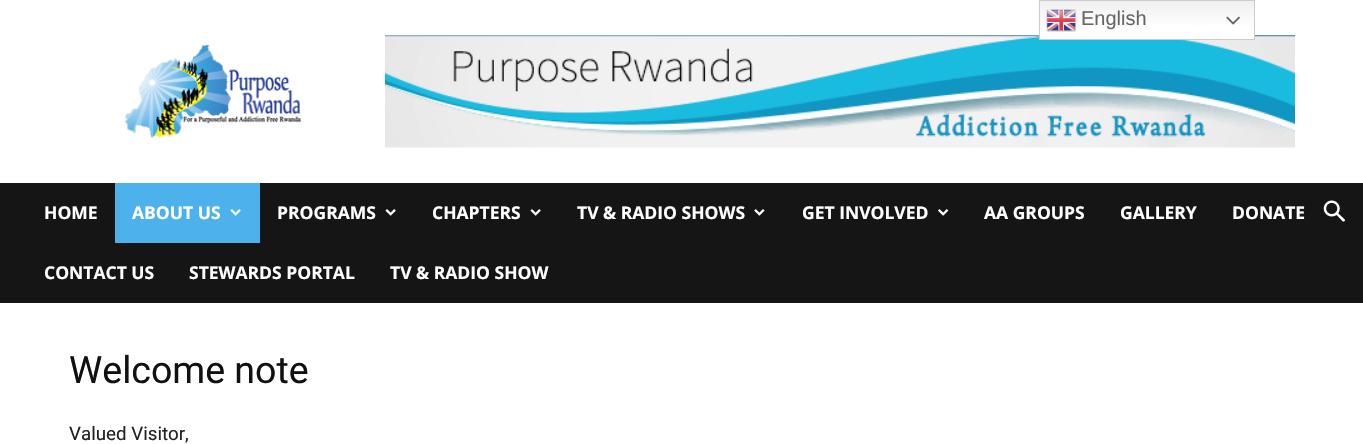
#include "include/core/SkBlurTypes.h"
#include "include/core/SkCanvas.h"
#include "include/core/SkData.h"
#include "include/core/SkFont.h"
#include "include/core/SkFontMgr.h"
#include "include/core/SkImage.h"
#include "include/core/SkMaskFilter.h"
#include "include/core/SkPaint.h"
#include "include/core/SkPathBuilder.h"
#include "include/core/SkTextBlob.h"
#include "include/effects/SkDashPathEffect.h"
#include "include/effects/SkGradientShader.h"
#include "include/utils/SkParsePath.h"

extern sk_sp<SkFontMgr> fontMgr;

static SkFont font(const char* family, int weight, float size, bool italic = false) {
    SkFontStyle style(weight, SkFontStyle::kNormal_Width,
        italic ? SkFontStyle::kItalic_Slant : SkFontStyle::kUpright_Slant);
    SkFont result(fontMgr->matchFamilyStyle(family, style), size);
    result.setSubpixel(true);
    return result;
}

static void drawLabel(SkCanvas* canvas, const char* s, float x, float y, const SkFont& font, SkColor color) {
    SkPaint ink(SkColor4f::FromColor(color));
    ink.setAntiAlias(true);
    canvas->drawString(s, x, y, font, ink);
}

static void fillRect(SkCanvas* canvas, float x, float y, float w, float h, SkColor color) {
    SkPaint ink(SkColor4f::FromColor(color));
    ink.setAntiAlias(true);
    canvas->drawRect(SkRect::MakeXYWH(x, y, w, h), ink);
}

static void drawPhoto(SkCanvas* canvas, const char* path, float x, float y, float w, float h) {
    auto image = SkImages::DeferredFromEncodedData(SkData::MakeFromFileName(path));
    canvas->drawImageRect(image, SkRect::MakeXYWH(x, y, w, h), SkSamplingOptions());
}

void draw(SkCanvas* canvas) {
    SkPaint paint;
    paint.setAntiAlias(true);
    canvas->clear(0xFFFFFFFF);
    drawPhoto(canvas, "assets/img4.png", 385, 35, 910, 113);
    {
        const SkColor colors[] = {0xFFEFEFEF, 0xFFFFFFFF};
        const float stops[] = {0, 0.7f};
        const SkPoint ends[] = {{1147, 0}, {1147, 40}};
        paint.setShader(SkGradientShader::MakeLinear(ends, colors, stops, 2, SkTileMode::kClamp));
        paint.setAlpha(255);
    }
    canvas->drawRect(SkRect::MakeXYWH(1040, 1, 214, 38), paint);
    paint.setStroke(true);
    paint.setStrokeWidth(1);
    paint.setShader(nullptr);
    paint.setColor(0xFFCCCCCC);
    canvas->drawRect(SkRect::MakeXYWH(1039.5f, 0.5f, 215, 39), paint);
    drawPhoto(canvas, "assets/img1.png", 1046, 9, 31, 23);
    SkFont font1 = font("Liberation Sans", 400, 20);
    drawLabel(canvas, "English", 1081, 25, font1, 0xFF666666);
    drawPhoto(canvas, "assets/img2.png", 1226, 16, 14, 9);
    drawPhoto(canvas, "assets/img3.png", 125, 45, 176, 93);
    fillRect(canvas, 0, 183, 1363, 120, 0xFF151515);
    SkFont font2 = font("Open Sans", 700, 17.5f);
    drawLabel(canvas, "HOME", 44, 219, font2, 0xFFFFFFFF);
    fillRect(canvas, 115, 183, 145, 60, 0xFF4DB2EC);
    drawLabel(canvas, "ABOUT US", 132, 219, font2, 0xFFFFFFFF);
    drawPhoto(canvas, "assets/img5.png", 230, 209, 11, 7);
    drawLabel(canvas, "PROGRAMS", 277, 219, font2, 0xFFFFFFFF);
    drawPhoto(canvas, "assets/img6.png", 385, 209, 11, 7);
    drawLabel(canvas, "CHAPTERS", 432, 219, font2, 0xFFFFFFFF);
    drawPhoto(canvas, "assets/img6.png", 530, 209, 11, 7);
    drawLabel(canvas, "TV & RADIO SHOWS", 577, 219, font2, 0xFFFFFFFF);
    drawPhoto(canvas, "assets/img7.png", 754, 209, 11, 7);
    drawLabel(canvas, "GET INVOLVED", 802, 219, font2, 0xFFFFFFFF);
    drawPhoto(canvas, "assets/img8.png", 938, 209, 11, 7);
    drawLabel(canvas, "AA GROUPS", 984, 219, font2, 0xFFFFFFFF);
    drawLabel(canvas, "GALLERY", 1120, 219, font2, 0xFFFFFFFF);
    drawLabel(canvas, "DONATE", 1232, 219, font2, 0xFFFFFFFF);
    drawLabel(canvas, "CONTACT US", 44, 279, font2, 0xFFFFFFFF);
    drawLabel(canvas, "STEWARDS PORTAL", 189, 279, font2, 0xFFFFFFFF);
    drawLabel(canvas, "TV & RADIO SHOW", 390, 279, font2, 0xFFFFFFFF);
    drawPhoto(canvas, "assets/img9.png", 1323, 200, 22, 22);
    SkFont font3 = font("Roboto", 400, 37.5f);
    drawLabel(canvas, "Welcome note", 69, 383, font3, 0xFF111111);
    SkFont font4 = font("Roboto", 400, 18.75f);
    drawLabel(canvas, "Valued Visitor,", 69, 440, font4, 0xFF222222);
}
